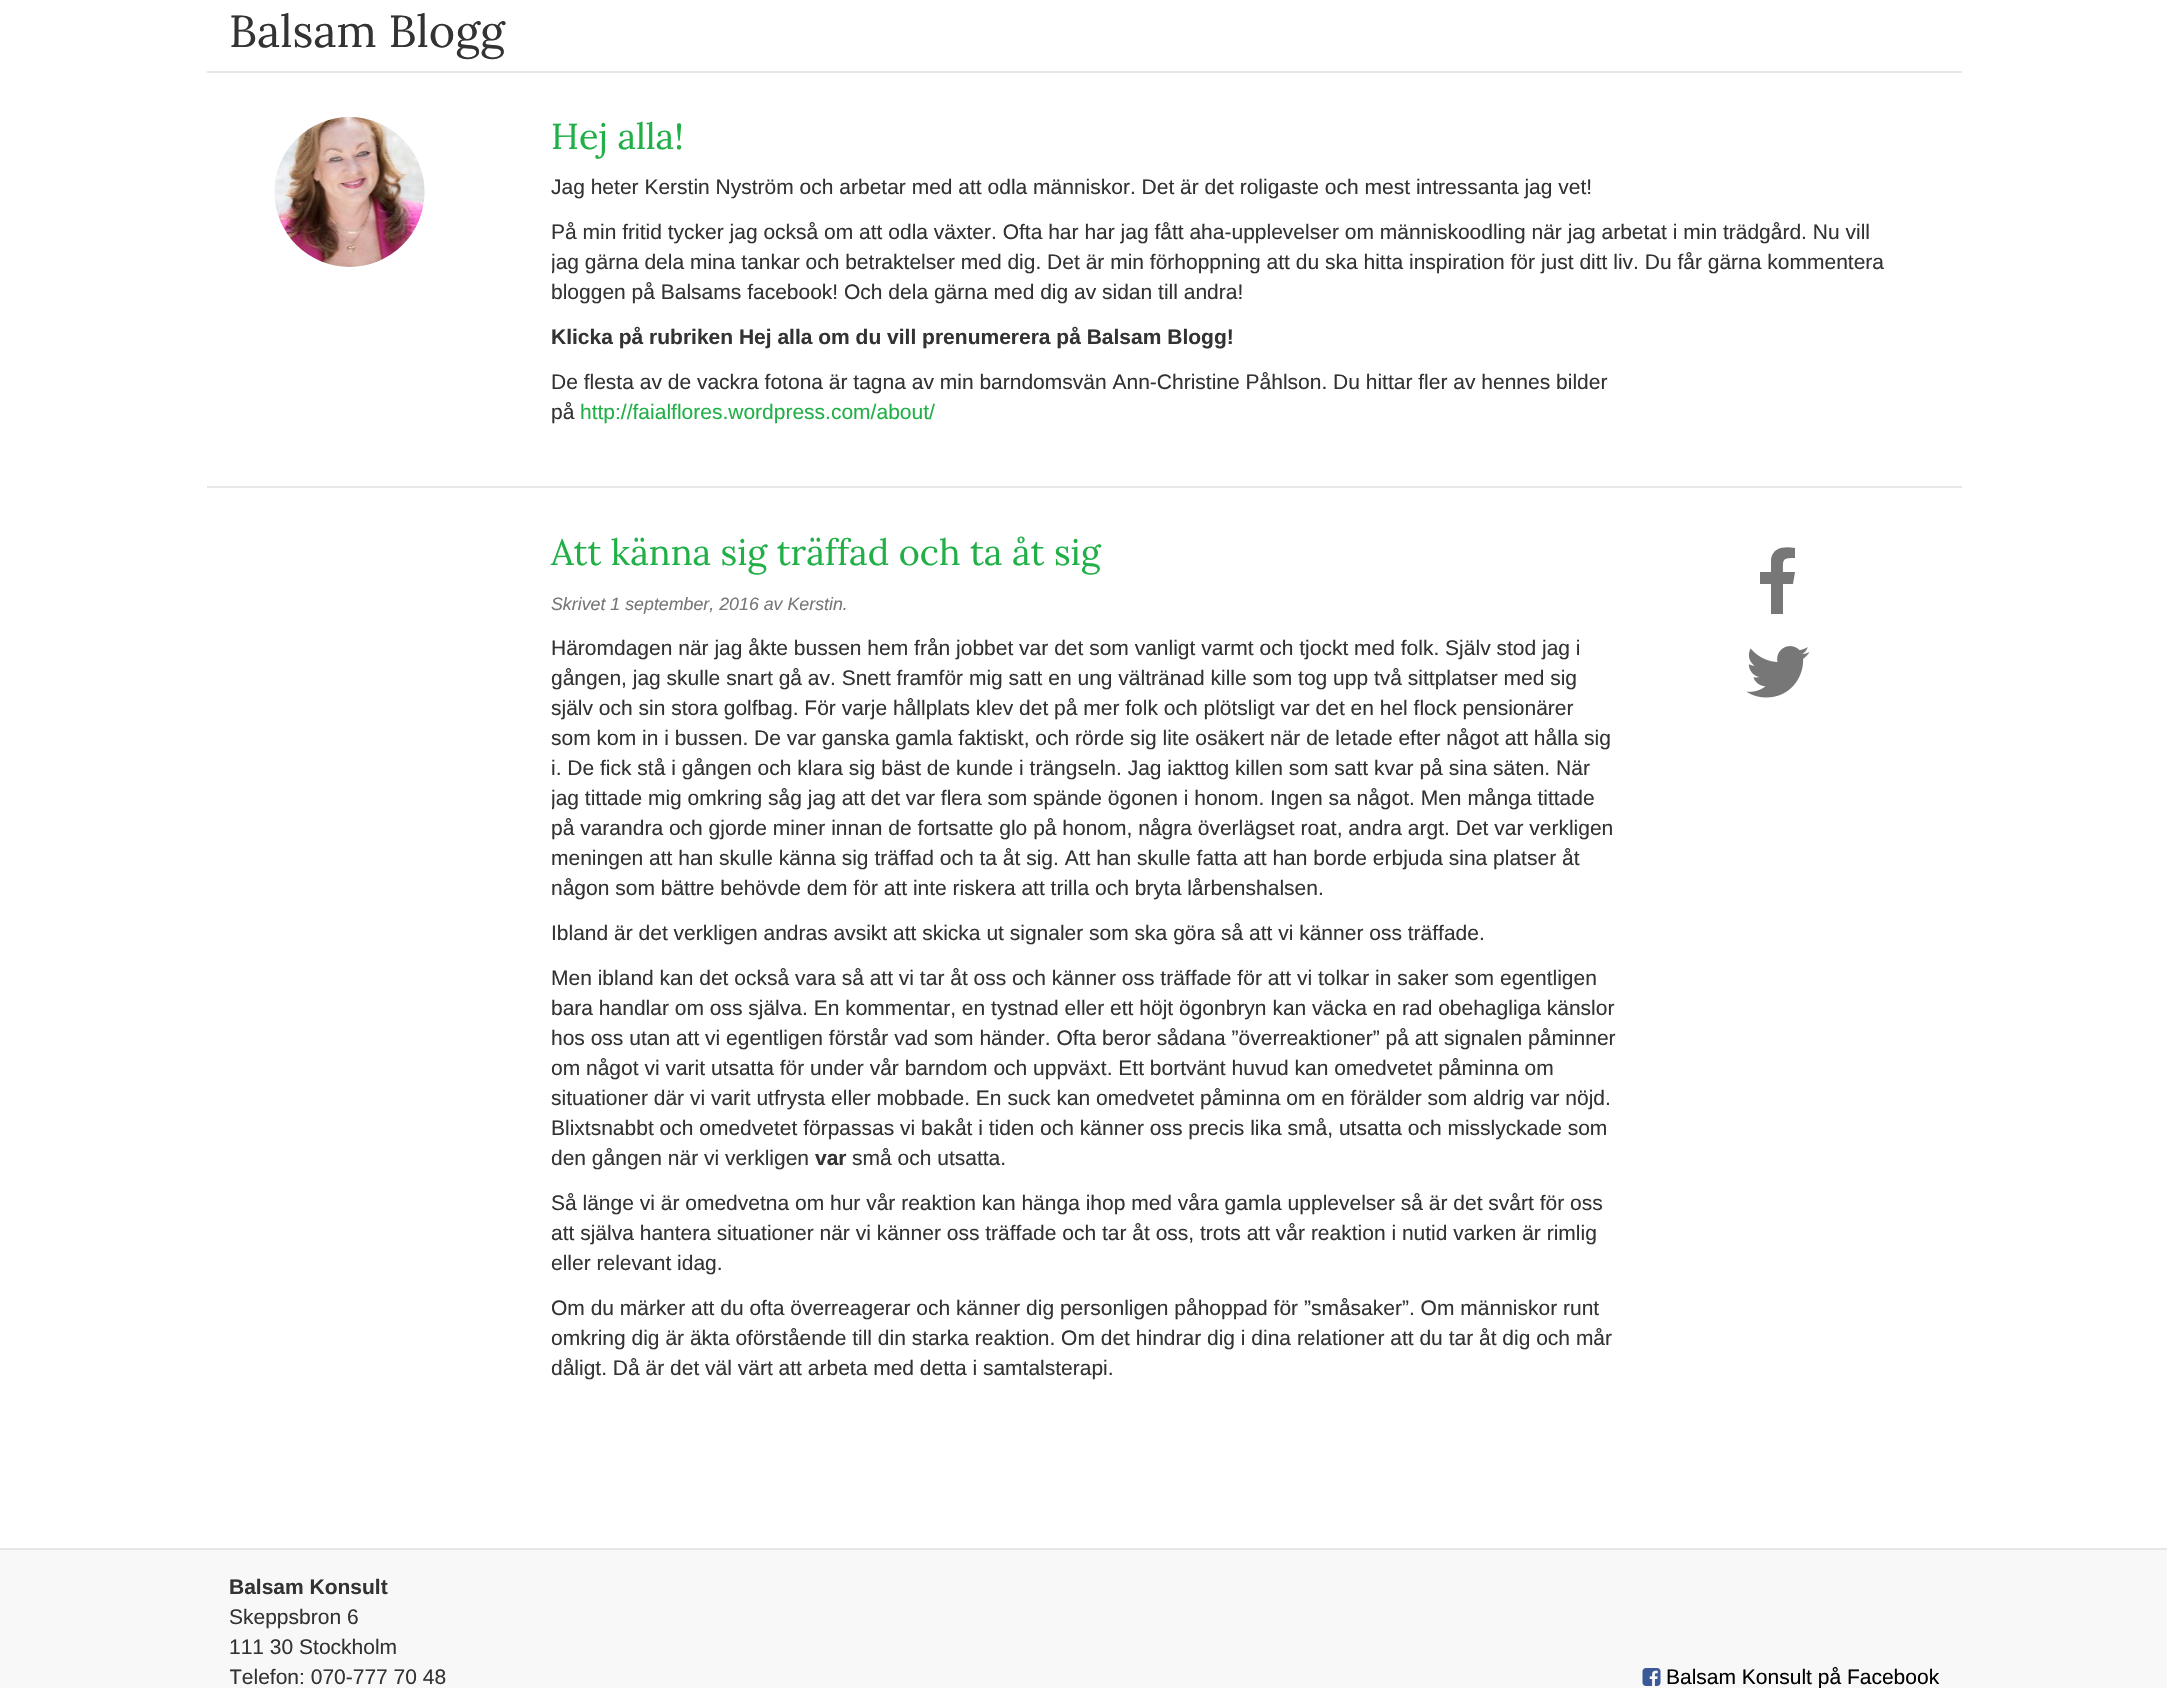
#include "include/core/SkBlurTypes.h"
#include "include/core/SkCanvas.h"
#include "include/core/SkData.h"
#include "include/core/SkFont.h"
#include "include/core/SkFontMgr.h"
#include "include/core/SkImage.h"
#include "include/core/SkMaskFilter.h"
#include "include/core/SkPaint.h"
#include "include/core/SkPathBuilder.h"
#include "include/core/SkTextBlob.h"
#include "include/effects/SkDashPathEffect.h"
#include "include/effects/SkGradientShader.h"
#include "include/utils/SkParsePath.h"

extern sk_sp<SkFontMgr> fontMgr;

static SkFont font(const char* family, int weight, float size, bool italic = false) {
    SkFontStyle style(weight, SkFontStyle::kNormal_Width,
        italic ? SkFontStyle::kItalic_Slant : SkFontStyle::kUpright_Slant);
    SkFont result(fontMgr->matchFamilyStyle(family, style), size);
    result.setSubpixel(true);
    return result;
}

static void drawLabel(SkCanvas* canvas, const char* s, float x, float y, const SkFont& font, SkColor color) {
    SkPaint ink(SkColor4f::FromColor(color));
    ink.setAntiAlias(true);
    canvas->drawString(s, x, y, font, ink);
}

static void fillRect(SkCanvas* canvas, float x, float y, float w, float h, SkColor color) {
    SkPaint ink(SkColor4f::FromColor(color));
    ink.setAntiAlias(true);
    canvas->drawRect(SkRect::MakeXYWH(x, y, w, h), ink);
}

static void drawPhoto(SkCanvas* canvas, const char* path, float x, float y, float w, float h) {
    auto image = SkImages::DeferredFromEncodedData(SkData::MakeFromFileName(path));
    canvas->drawImageRect(image, SkRect::MakeXYWH(x, y, w, h), SkSamplingOptions());
}

static SkPath parsePath(const char* data, bool evenOdd = false) {
    SkPath result = *SkParsePath::FromSVGString(data);
    if (evenOdd) result.setFillType(SkPathFillType::kEvenOdd);
    return result;
}

void draw(SkCanvas* canvas) {
    SkPaint paint;
    paint.setAntiAlias(true);
    canvas->clear(0xFFFFFFFF);
    SkFont font1 = font("Lora", 400, 45);
    drawLabel(canvas, "Balsam Blogg", 229, 47, font1, 0xFF333333);
    fillRect(canvas, 207, 71, 1755, 2, 0xFFE7E7E7);
    drawPhoto(canvas, "assets/img1.png", 274, 117, 151, 150);
    SkFont font2 = font("Lora", 400, 36);
    drawLabel(canvas, "Hej alla!", 551, 149, font2, 0xFF21B047);
    SkFont font3 = font("Liberation Sans", 400, 21);
    drawLabel(canvas, "Jag heter Kerstin Nyström och arbetar med att odla människor. Det är det roligaste och mest intressanta jag vet!", 551, 194, font3, 0xFF333333);
    drawLabel(canvas, "På min fritid tycker jag också om att odla växter. Ofta har har jag fått aha-upplevelser om människoodling när jag arbetat i min trädgård. Nu vill", 551, 239, font3, 0xFF333333);
    canvas->save();
    canvas->clipRect(SkRect::MakeXYWH(552, 171, 1343, 270));
    drawLabel(canvas, "jag gärna dela mina tankar och betraktelser med dig. Det är min förhoppning att du ska hitta inspiration för just ditt liv. Du får gärna kommentera", 551, 269, font3, 0xFF333333);
    canvas->restore();
    drawLabel(canvas, "bloggen på Balsams facebook! Och dela gärna med dig av sidan till andra!", 551, 299, font3, 0xFF333333);
    SkFont font4 = font("Liberation Sans", 700, 21);
    drawLabel(canvas, "Klicka på rubriken Hej alla om du vill prenumerera på Balsam Blogg!", 551, 344, font4, 0xFF333333);
    drawLabel(canvas, "De flesta av de vackra fotona är tagna av min barndomsvän Ann-Christine Påhlson. Du hittar fler av hennes bilder", 551, 389, font3, 0xFF333333);
    drawLabel(canvas, "på", 551, 419, font3, 0xFF333333);
    drawLabel(canvas, "http://faialflores.wordpress.com/about/", 580, 419, font3, 0xFF21B047);
    fillRect(canvas, 207, 486, 1755, 2, 0xFFE7E7E7);
    drawLabel(canvas, "Att känna sig träffad och ta åt sig", 551, 565, font2, 0xFF21B047);
    SkFont font5 = font("Liberation Sans", 400, 17.8f, true);
    drawLabel(canvas, "Skrivet 1 september, 2016 av Kerstin.", 551, 610, font5, 0xFF777777);
    drawLabel(canvas, "Häromdagen när jag åkte bussen hem från jobbet var det som vanligt varmt och tjockt med folk. Själv stod jag i", 551, 655, font3, 0xFF333333);
    drawLabel(canvas, "gången, jag skulle snart gå av. Snett framför mig satt en ung vältränad kille som tog upp två sittplatser med sig", 551, 685, font3, 0xFF333333);
    drawLabel(canvas, "själv och sin stora golfbag. För varje hållplats klev det på mer folk och plötsligt var det en hel flock pensionärer", 551, 715, font3, 0xFF333333);
    drawLabel(canvas, "som kom in i bussen. De var ganska gamla faktiskt, och rörde sig lite osäkert när de letade efter något att hålla sig", 551, 745, font3, 0xFF333333);
    drawLabel(canvas, "i. De fick stå i gången och klara sig bäst de kunde i trängseln. Jag iakttog killen som satt kvar på sina säten. När", 551, 775, font3, 0xFF333333);
    canvas->save();
    canvas->clipRect(SkRect::MakeXYWH(552, 633, 1065, 810));
    drawLabel(canvas, "jag tittade mig omkring såg jag att det var flera som spände ögonen i honom. Ingen sa något. Men många tittade", 551, 805, font3, 0xFF333333);
    canvas->restore();
    drawLabel(canvas, "på varandra och gjorde miner innan de fortsatte glo på honom, några överlägset roat, andra argt. Det var verkligen", 551, 835, font3, 0xFF333333);
    drawLabel(canvas, "meningen att han skulle känna sig träffad och ta åt sig. Att han skulle fatta att han borde erbjuda sina platser åt", 551, 865, font3, 0xFF333333);
    drawLabel(canvas, "någon som bättre behövde dem för att inte riskera att trilla och bryta lårbenshalsen.", 551, 895, font3, 0xFF333333);
    drawLabel(canvas, "Ibland är det verkligen andras avsikt att skicka ut signaler som ska göra så att vi känner oss träffade.", 551, 940, font3, 0xFF333333);
    drawLabel(canvas, "Men ibland kan det också vara så att vi tar åt oss och känner oss träffade för att vi tolkar in saker som egentligen", 551, 985, font3, 0xFF333333);
    drawLabel(canvas, "bara handlar om oss själva. En kommentar, en tystnad eller ett höjt ögonbryn kan väcka en rad obehagliga känslor", 551, 1015, font3, 0xFF333333);
    drawLabel(canvas, "hos oss utan att vi egentligen förstår vad som händer. Ofta beror sådana ”överreaktioner” på att signalen påminner", 551, 1045, font3, 0xFF333333);
    drawLabel(canvas, "om något vi varit utsatta för under vår barndom och uppväxt. Ett bortvänt huvud kan omedvetet påminna om", 551, 1075, font3, 0xFF333333);
    drawLabel(canvas, "situationer där vi varit utfrysta eller mobbade. En suck kan omedvetet påminna om en förälder som aldrig var nöjd.", 551, 1105, font3, 0xFF333333);
    drawLabel(canvas, "Blixtsnabbt och omedvetet förpassas vi bakåt i tiden och känner oss precis lika små, utsatta och misslyckade som", 551, 1135, font3, 0xFF333333);
    drawLabel(canvas, "den gången när vi verkligen", 551, 1165, font3, 0xFF333333);
    drawLabel(canvas, "var", 815, 1165, font4, 0xFF333333);
    drawLabel(canvas, "små och utsatta.", 852, 1165, font3, 0xFF333333);
    drawLabel(canvas, "Så länge vi är omedvetna om hur vår reaktion kan hänga ihop med våra gamla upplevelser så är det svårt för oss", 551, 1210, font3, 0xFF333333);
    drawLabel(canvas, "att själva hantera situationer när vi känner oss träffade och tar åt oss, trots att vår reaktion i nutid varken är rimlig", 551, 1240, font3, 0xFF333333);
    drawLabel(canvas, "eller relevant idag.", 551, 1270, font3, 0xFF333333);
    drawLabel(canvas, "Om du märker att du ofta överreagerar och känner dig personligen påhoppad för ”småsaker”. Om människor runt", 551, 1315, font3, 0xFF333333);
    drawLabel(canvas, "omkring dig är äkta oförstående till din starka reaktion. Om det hindrar dig i dina relationer att du tar åt dig och mår", 551, 1345, font3, 0xFF333333);
    drawLabel(canvas, "dåligt. Då är det väl värt att arbeta med detta i samtalsterapi.", 551, 1375, font3, 0xFF333333);
    paint.setColor(0xFF777777);
    canvas->drawPath(parsePath("M1795 548C1785 546 1773 547 1771 559V572H1760V584H1771V614H1783V584H1793L1795 572H1783C1783 559 1782 558 1795 558Z"), paint);
    drawPhoto(canvas, "assets/img2.png", 1746, 646, 64, 52);
    fillRect(canvas, 0, 1550, 2167, 138, 0xFFF8F8F8);
    fillRect(canvas, 0, 1548, 2167, 2, 0xFFE7E7E7);
    drawLabel(canvas, "Balsam Konsult", 229, 1594, font4, 0xFF333333);
    drawLabel(canvas, "Skeppsbron 6", 229, 1624, font3, 0xFF333333);
    drawLabel(canvas, "111 30 Stockholm", 229, 1654, font3, 0xFF333333);
    canvas->save();
    canvas->clipRect(SkRect::MakeXYWH(230, 1572, 216, 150));
    drawLabel(canvas, "Telefon: 070-777 70 48", 229, 1684, font3, 0xFF333333);
    canvas->restore();
    drawPhoto(canvas, "assets/img3.png", 1642, 1668, 19, 18);
    drawLabel(canvas, "Balsam Konsult på Facebook", 1666, 1684, font3, 0xFF000000);
}
